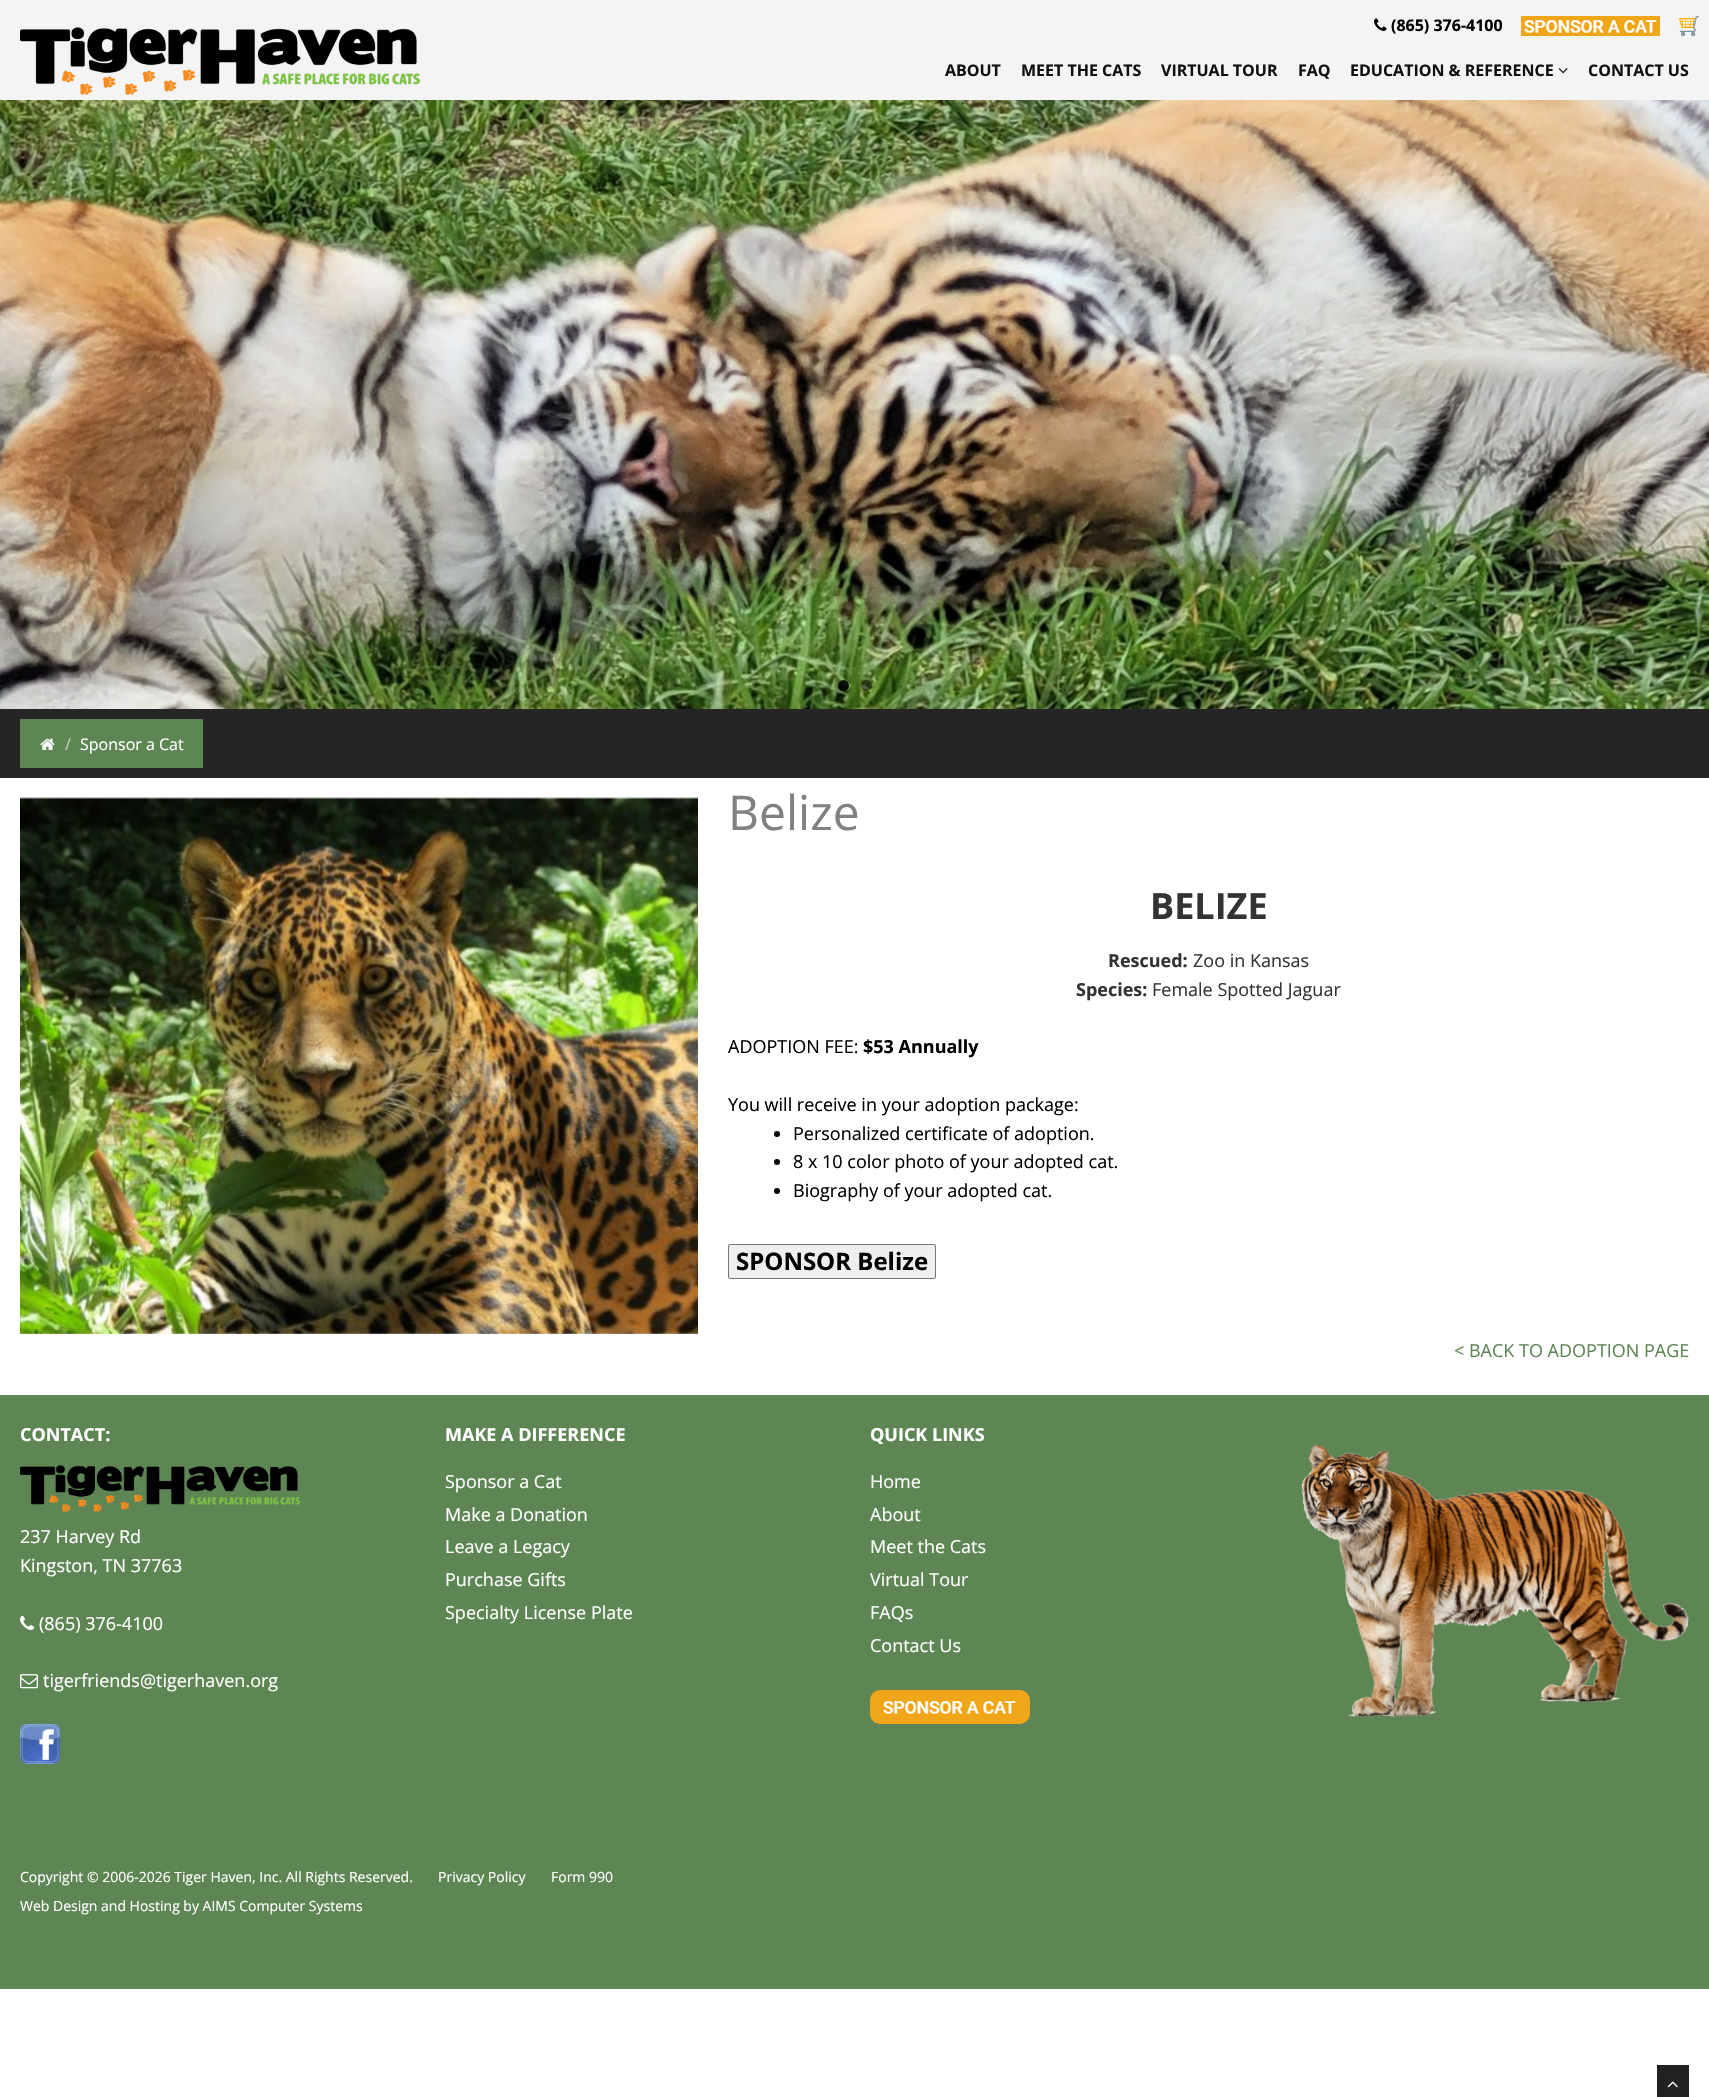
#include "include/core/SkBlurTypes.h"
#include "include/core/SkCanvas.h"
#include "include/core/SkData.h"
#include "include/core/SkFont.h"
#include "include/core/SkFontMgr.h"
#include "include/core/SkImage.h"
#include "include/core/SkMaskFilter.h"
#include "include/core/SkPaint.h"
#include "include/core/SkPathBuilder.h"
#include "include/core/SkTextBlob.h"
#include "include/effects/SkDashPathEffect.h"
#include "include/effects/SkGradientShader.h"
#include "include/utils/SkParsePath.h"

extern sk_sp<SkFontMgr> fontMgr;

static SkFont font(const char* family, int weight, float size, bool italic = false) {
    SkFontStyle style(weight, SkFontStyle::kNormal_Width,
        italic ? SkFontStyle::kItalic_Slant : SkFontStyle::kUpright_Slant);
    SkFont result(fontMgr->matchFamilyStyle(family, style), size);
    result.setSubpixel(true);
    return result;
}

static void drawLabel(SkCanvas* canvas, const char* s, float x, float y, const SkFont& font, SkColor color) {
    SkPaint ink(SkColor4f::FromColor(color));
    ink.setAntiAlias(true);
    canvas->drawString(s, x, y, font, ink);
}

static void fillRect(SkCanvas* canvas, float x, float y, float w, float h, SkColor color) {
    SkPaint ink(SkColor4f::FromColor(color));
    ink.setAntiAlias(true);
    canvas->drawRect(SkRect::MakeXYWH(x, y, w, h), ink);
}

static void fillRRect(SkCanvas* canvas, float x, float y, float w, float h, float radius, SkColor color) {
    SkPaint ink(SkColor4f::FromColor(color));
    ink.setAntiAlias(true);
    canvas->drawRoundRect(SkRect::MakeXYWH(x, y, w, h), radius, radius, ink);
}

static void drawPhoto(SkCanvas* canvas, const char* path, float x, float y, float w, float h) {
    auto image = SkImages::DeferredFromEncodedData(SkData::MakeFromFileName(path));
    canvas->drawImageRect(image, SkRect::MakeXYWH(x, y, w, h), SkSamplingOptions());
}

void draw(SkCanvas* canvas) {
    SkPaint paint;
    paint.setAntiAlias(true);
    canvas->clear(0xFFFFFFFF);
    fillRect(canvas, 0, 0, 1709, 100, 0xFFF4F4F4);
    drawPhoto(canvas, "assets/img1.png", 1374, 18, 13, 13);
    SkFont font1 = font("Open Sans", 700, 16);
    drawLabel(canvas, "(865) 376-4100", 1391, 31, font1, 0xFF000000);
    drawPhoto(canvas, "assets/img2.png", 1521, 16, 139, 20);
    drawPhoto(canvas, "assets/img3.png", 1679, 16, 20, 20);
    drawPhoto(canvas, "assets/img4.png", 20, 27, 400, 68);
    drawLabel(canvas, "ABOUT", 945, 76, font1, 0xFF111111);
    drawLabel(canvas, "MEET THE CATS", 1021, 76, font1, 0xFF111111);
    drawLabel(canvas, "VIRTUAL TOUR", 1161, 76, font1, 0xFF111111);
    drawLabel(canvas, "FAQ", 1298, 76, font1, 0xFF111111);
    drawLabel(canvas, "EDUCATION & REFERENCE", 1350, 76, font1, 0xFF111111);
    drawPhoto(canvas, "assets/img5.png", 1558, 68, 10, 6);
    drawLabel(canvas, "CONTACT US", 1588, 76, font1, 0xFF111111);
    drawPhoto(canvas, "assets/img6.png", 0, 100, 1709, 609);
    paint.setColor(0xE6000000);
    canvas->drawCircle(843.5f, 685.5f, 5.5f, paint);
    paint.setColor(0x80000000);
    canvas->drawCircle(866.5f, 685.5f, 5.5f, paint);
    fillRect(canvas, 0, 709, 1709, 69, 0xFF252525);
    fillRect(canvas, 20, 719, 183, 49, 0xFF5E8554);
    drawPhoto(canvas, "assets/img7.png", 40, 738, 15, 12);
    SkFont font2 = font("Open Sans", 400, 16);
    drawLabel(canvas, "/", 65, 750, font2, 0xFFCCCCCC);
    drawLabel(canvas, "Sponsor a Cat", 80, 750, font2, 0xFFFFFFFF);
    drawPhoto(canvas, "assets/img8.png", 20, 797, 678, 537);
    SkFont font3 = font("Open Sans", 400, 48);
    drawLabel(canvas, "Belize", 728, 830, font3, 0xFF818181);
    SkFont font4 = font("Open Sans", 700, 36);
    drawLabel(canvas, "BELIZE", 1150, 919, font4, 0xFF333333);
    SkFont font5 = font("Open Sans", 700, 18);
    drawLabel(canvas, "Rescued:", 1108, 967, font5, 0xFF333333);
    SkFont font6 = font("Open Sans", 400, 18);
    drawLabel(canvas, "Zoo in Kansas", 1193, 967, font6, 0xFF333333);
    drawLabel(canvas, "Species:", 1076, 996, font5, 0xFF333333);
    drawLabel(canvas, "Female Spotted Jaguar", 1152, 996, font6, 0xFF333333);
    drawLabel(canvas, "ADOPTION FEE:", 728, 1053, font6, 0xFF000000);
    drawLabel(canvas, "$53 Annually", 863, 1053, font5, 0xFF000000);
    drawLabel(canvas, "You will receive in your adoption package:", 728, 1111, font6, 0xFF000000);
    paint.setColor(0xFF000000);
    canvas->drawCircle(777, 1134, 3, paint);
    drawLabel(canvas, "Personalized certificate of adoption.", 793, 1140, font6, 0xFF000000);
    canvas->drawCircle(777, 1162, 3, paint);
    drawLabel(canvas, "8 x 10 color photo of your adopted cat.", 793, 1168, font6, 0xFF000000);
    canvas->drawCircle(777, 1191, 3, paint);
    drawLabel(canvas, "Biography of your adopted cat.", 793, 1197, font6, 0xFF000000);
    paint.setColor(0xFFEFEFEF);
    canvas->drawRoundRect(SkRect::MakeXYWH(728.5f, 1244.5f, 207, 34), 1.5f, 1.5f, paint);
    paint.setStroke(true);
    paint.setStrokeWidth(1);
    paint.setColor(0xFF767676);
    canvas->drawRoundRect(SkRect::MakeXYWH(728.5f, 1244.5f, 207, 34), 1.5f, 1.5f, paint);
    SkFont font7 = font("Open Sans", 700, 24);
    drawLabel(canvas, "SPONSOR Belize", 736, 1270, font7, 0xFF000000);
    drawLabel(canvas, "< BACK TO ADOPTION PAGE", 1454, 1357, font6, 0xFF5E8554);
    fillRect(canvas, 0, 1395, 1709, 594, 0xFF5E8554);
    drawLabel(canvas, "CONTACT:", 20, 1441, font5, 0xFFFFFFFF);
    drawPhoto(canvas, "assets/img9.png", 20, 1465, 280, 47);
    drawLabel(canvas, "237 Harvey Rd", 20, 1543, font6, 0xFFFFFFFF);
    drawLabel(canvas, "Kingston, TN 37763", 20, 1572, font6, 0xFFFFFFFF);
    drawPhoto(canvas, "assets/img10.png", 20, 1615, 15, 15);
    drawLabel(canvas, "(865) 376-4100", 39, 1630, font6, 0xFFFFFFFF);
    drawPhoto(canvas, "assets/img11.png", 20, 1674, 18, 15);
    drawLabel(canvas, "tigerfriends@tigerhaven.org", 43, 1687, font6, 0xFFFFFFFF);
    drawPhoto(canvas, "assets/img12.png", 20, 1724, 40, 40);
    drawLabel(canvas, "MAKE A DIFFERENCE", 445, 1441, font5, 0xFFFFFFFF);
    drawLabel(canvas, "Sponsor a Cat", 445, 1488, font6, 0xFFFFFFFF);
    drawLabel(canvas, "Make a Donation", 445, 1521, font6, 0xFFFFFFFF);
    drawLabel(canvas, "Leave a Legacy", 445, 1553, font6, 0xFFFFFFFF);
    drawLabel(canvas, "Purchase Gifts", 445, 1586, font6, 0xFFFFFFFF);
    drawLabel(canvas, "Specialty License Plate", 445, 1619, font6, 0xFFFFFFFF);
    drawLabel(canvas, "QUICK LINKS", 870, 1441, font5, 0xFFFFFFFF);
    drawLabel(canvas, "Home", 870, 1488, font6, 0xFFFFFFFF);
    drawLabel(canvas, "About", 870, 1521, font6, 0xFFFFFFFF);
    drawLabel(canvas, "Meet the Cats", 870, 1553, font6, 0xFFFFFFFF);
    drawLabel(canvas, "Virtual Tour", 870, 1586, font6, 0xFFFFFFFF);
    drawLabel(canvas, "FAQs", 870, 1619, font6, 0xFFFFFFFF);
    drawLabel(canvas, "Contact Us", 870, 1652, font6, 0xFFFFFFFF);
    fillRRect(canvas, 870, 1690, 160, 34, 10, 0xFFF0A619);
    drawPhoto(canvas, "assets/img13.png", 882, 1700, 135, 15);
    drawPhoto(canvas, "assets/img14.png", 1301, 1443, 388, 274);
    SkFont font8 = font("Open Sans", 400, 14);
    drawLabel(canvas, "Copyright © 2006-2026 Tiger Haven, Inc. All Rights Reserved.", 20, 1882, font8, 0xFFFFFFFF);
    drawLabel(canvas, "Privacy Policy", 438, 1882, font8, 0xFFFFFFFF);
    drawLabel(canvas, "Form 990", 551, 1882, font8, 0xFFFFFFFF);
    drawLabel(canvas, "Web Design and Hosting by AIMS Computer Systems", 20, 1911, font8, 0xFFFFFFFF);
    fillRect(canvas, 1657, 2065, 32, 32, 0xFF222222);
    drawPhoto(canvas, "assets/img15.png", 1667, 2081, 11, 7);
}
